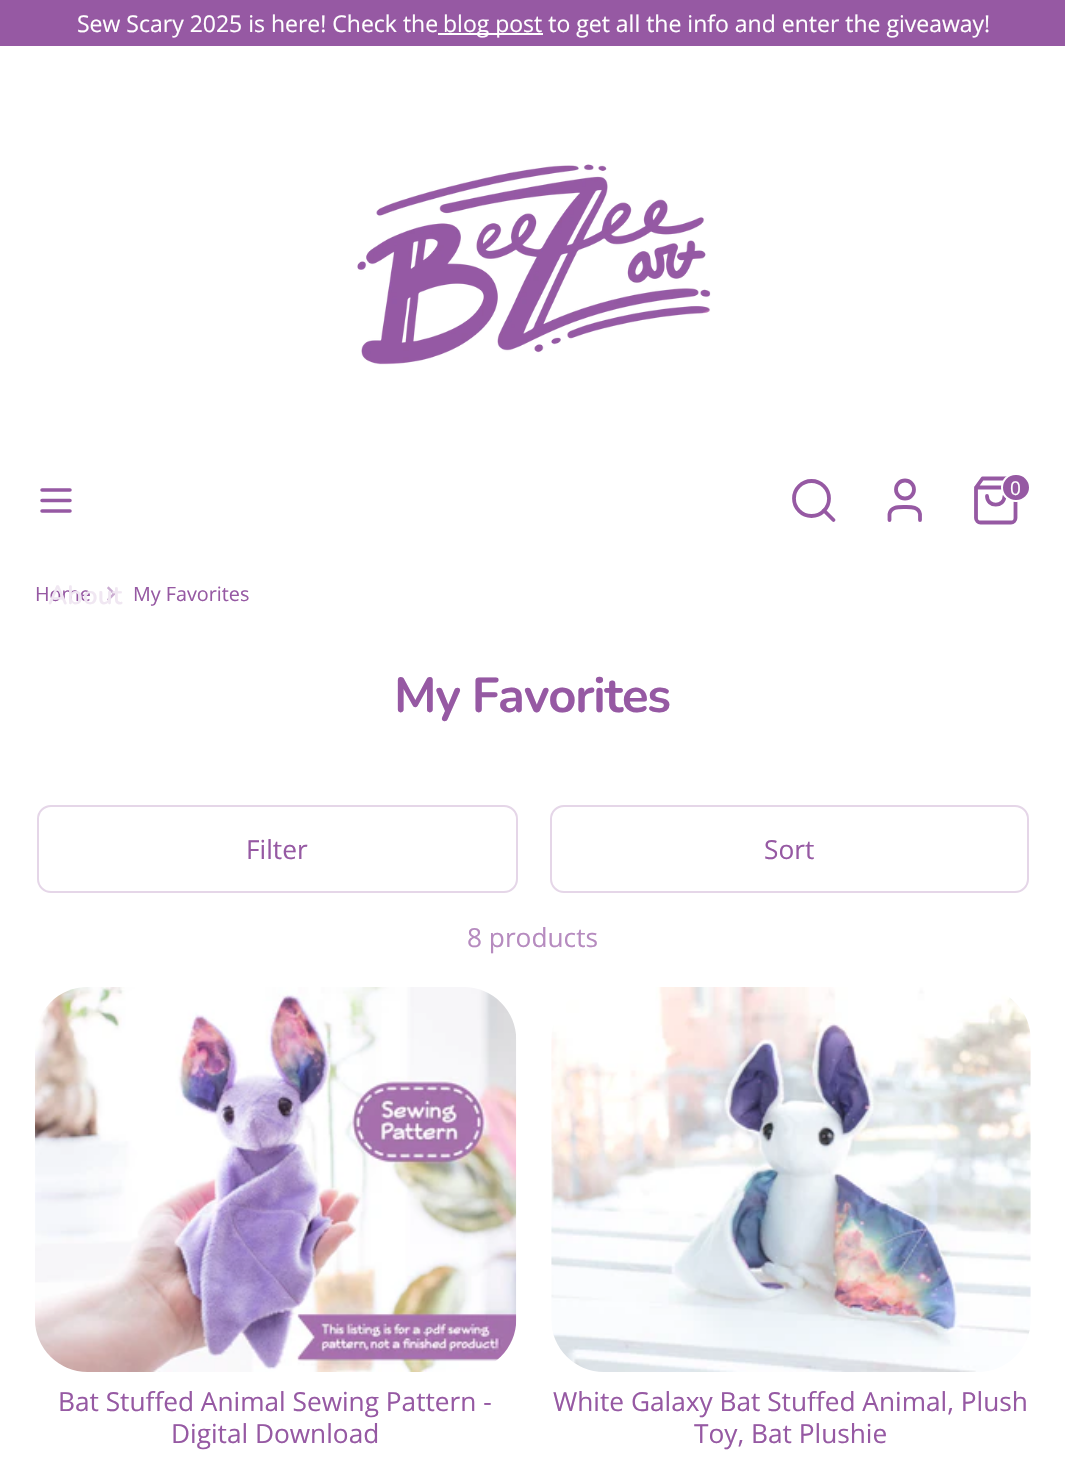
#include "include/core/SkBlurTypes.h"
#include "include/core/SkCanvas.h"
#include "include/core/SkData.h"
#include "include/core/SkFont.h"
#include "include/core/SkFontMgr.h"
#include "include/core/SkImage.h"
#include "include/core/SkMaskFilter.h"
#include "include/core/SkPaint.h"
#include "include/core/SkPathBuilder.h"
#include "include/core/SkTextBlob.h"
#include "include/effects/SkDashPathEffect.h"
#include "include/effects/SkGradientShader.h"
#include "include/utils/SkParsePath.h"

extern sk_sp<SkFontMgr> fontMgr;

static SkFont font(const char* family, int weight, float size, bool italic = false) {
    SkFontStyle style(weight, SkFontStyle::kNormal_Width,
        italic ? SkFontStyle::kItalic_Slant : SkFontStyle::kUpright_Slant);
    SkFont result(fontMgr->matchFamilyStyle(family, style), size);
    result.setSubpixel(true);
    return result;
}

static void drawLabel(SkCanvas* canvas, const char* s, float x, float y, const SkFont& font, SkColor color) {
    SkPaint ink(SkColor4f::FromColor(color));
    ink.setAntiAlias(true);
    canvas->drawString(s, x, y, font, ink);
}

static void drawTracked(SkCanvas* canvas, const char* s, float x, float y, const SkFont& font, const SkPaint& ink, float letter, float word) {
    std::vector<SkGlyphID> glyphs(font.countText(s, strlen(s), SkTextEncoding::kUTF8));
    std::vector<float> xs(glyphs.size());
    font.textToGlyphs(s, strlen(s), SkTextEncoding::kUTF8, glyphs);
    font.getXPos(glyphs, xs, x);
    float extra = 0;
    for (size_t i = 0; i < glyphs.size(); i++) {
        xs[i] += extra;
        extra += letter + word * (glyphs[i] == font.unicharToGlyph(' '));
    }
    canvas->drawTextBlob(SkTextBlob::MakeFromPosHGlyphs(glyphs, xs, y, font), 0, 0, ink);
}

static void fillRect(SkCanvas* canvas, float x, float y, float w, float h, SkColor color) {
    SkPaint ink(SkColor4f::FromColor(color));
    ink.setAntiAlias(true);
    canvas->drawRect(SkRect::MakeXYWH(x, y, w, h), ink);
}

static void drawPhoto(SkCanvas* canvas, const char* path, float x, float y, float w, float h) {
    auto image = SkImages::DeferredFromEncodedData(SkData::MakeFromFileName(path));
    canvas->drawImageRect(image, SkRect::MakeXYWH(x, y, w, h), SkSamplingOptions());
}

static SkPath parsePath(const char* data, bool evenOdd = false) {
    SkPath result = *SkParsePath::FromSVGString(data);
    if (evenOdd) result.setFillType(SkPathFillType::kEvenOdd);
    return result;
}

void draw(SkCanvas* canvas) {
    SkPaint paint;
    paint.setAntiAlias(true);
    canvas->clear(0xFFFFFFFF);
    fillRect(canvas, 0, 0, 1065, 46, 0xFF9659A3);
    SkFont font1 = font("Open Sans", 400, 23);
    drawLabel(canvas, "Sew Scary 2025 is here! Check the", 77, 32, font1, 0xFFFFFFFF);
    fillRect(canvas, 438, 33, 105, 2, 0xFFFFFFFF);
    drawLabel(canvas, "blog post to get all the info and enter the giveaway!", 443, 32, font1, 0xFFFFFFFF);
    drawPhoto(canvas, "assets/img1.png", 357, 164, 354, 201);
    paint.setStroke(true);
    paint.setStrokeWidth(3.5f);
    paint.setStrokeCap(SkPaint::kRound_Cap);
    paint.setStrokeJoin(SkPaint::kRound_Join);
    paint.setColor(0xFF9659A3);
    canvas->drawPath(parsePath("M42 500.5H70M42 490H70M42 511H70"), paint);
    paint.setStrokeWidth(3.8f);
    paint.setStrokeCap(SkPaint::kButt_Cap);
    paint.setStrokeJoin(SkPaint::kMiter_Join);
    canvas->drawCircle(811.5f, 498.5f, 17.5f, paint);
    paint.setStrokeCap(SkPaint::kRound_Cap);
    paint.setStrokeJoin(SkPaint::kRound_Join);
    canvas->drawPath(parsePath("M833.5 520L824 510.5"), paint);
    canvas->drawPath(parsePath("M920 520V514C918.5 506.5 911 507 905 507C898.5 507 891 506.5 889.5 514V520"), paint);
    paint.setStrokeCap(SkPaint::kButt_Cap);
    paint.setStrokeJoin(SkPaint::kMiter_Join);
    canvas->drawCircle(905, 489.5f, 9, paint);
    paint.setStrokeCap(SkPaint::kRound_Cap);
    paint.setStrokeJoin(SkPaint::kRound_Join);
    canvas->drawPath(parsePath("M982.5 478.5L976 487.5V518C976 520.5 978 522.5 980.5 522.5H1011C1013.5 522.5 1015.5 520.5 1015.5 518V487.5L1009 478.5ZM976 487.5H1015.5M1004.5 496C1004.5 507.5 987 507.5 987 496"), paint);
    paint.setStroke(false);
    canvas->drawRoundRect(SkRect::MakeXYWH(1002, 474, 28, 27), 13.5f, 13.5f, paint);
    paint.setStroke(true);
    paint.setStrokeWidth(2);
    paint.setStrokeCap(SkPaint::kButt_Cap);
    paint.setStrokeJoin(SkPaint::kMiter_Join);
    paint.setColor(0xFFFFFFFF);
    canvas->drawRoundRect(SkRect::MakeXYWH(1002, 474, 28, 27), 13.5f, 13.5f, paint);
    SkFont font2 = font("Open Sans", 400, 19);
    drawLabel(canvas, "0", 1010, 495, font2, 0xFFFFFFFF);
    SkFont font3 = font("Open Sans", 400, 19.75f);
    drawLabel(canvas, "Home", 35, 601, font3, 0xFF9659A3);
    drawPhoto(canvas, "assets/img2.png", 107, 586, 9, 15);
    SkFont font4 = font("Nunito", 600, 26.25f);
    drawLabel(canvas, "About", 48, 604, font4, 0xFFF0E7F2);
    drawLabel(canvas, "My Favorites", 133, 601, font3, 0xFF9659A3);
    SkFont font5 = font("Nunito", 700, 49);
    paint.setStroke(false);
    paint.setColor(0xFF9659A3);
    drawTracked(canvas, "My Favorites", 394, 712, font5, paint, -1.25f, 0);
    paint.setStroke(true);
    paint.setColor(0xFFE5D6E8);
    canvas->drawRoundRect(SkRect::MakeXYWH(38, 806, 479, 86), 13, 13, paint);
    SkFont font6 = font("Open Sans", 400, 26.25f);
    drawLabel(canvas, "Filter", 246, 859, font6, 0xFF9659A3);
    canvas->drawRoundRect(SkRect::MakeXYWH(551, 806, 477, 86), 13, 13, paint);
    drawLabel(canvas, "Sort", 764, 859, font6, 0xFF9659A3);
    drawLabel(canvas, "8 products", 467, 947, font6, 0xFFB68BBF);
    drawPhoto(canvas, "assets/img3.png", 35, 987, 482, 385);
    drawLabel(canvas, "Bat Stuffed Animal Sewing Pattern -", 58, 1411, font6, 0xFF9659A3);
    drawLabel(canvas, "Digital Download", 171, 1443, font6, 0xFF9659A3);
    drawPhoto(canvas, "assets/img4.png", 551, 987, 480, 385);
    drawLabel(canvas, "White Galaxy Bat Stuffed Animal, Plush", 553, 1411, font6, 0xFF9659A3);
    drawLabel(canvas, "Toy, Bat Plushie", 694, 1443, font6, 0xFF9659A3);
}
